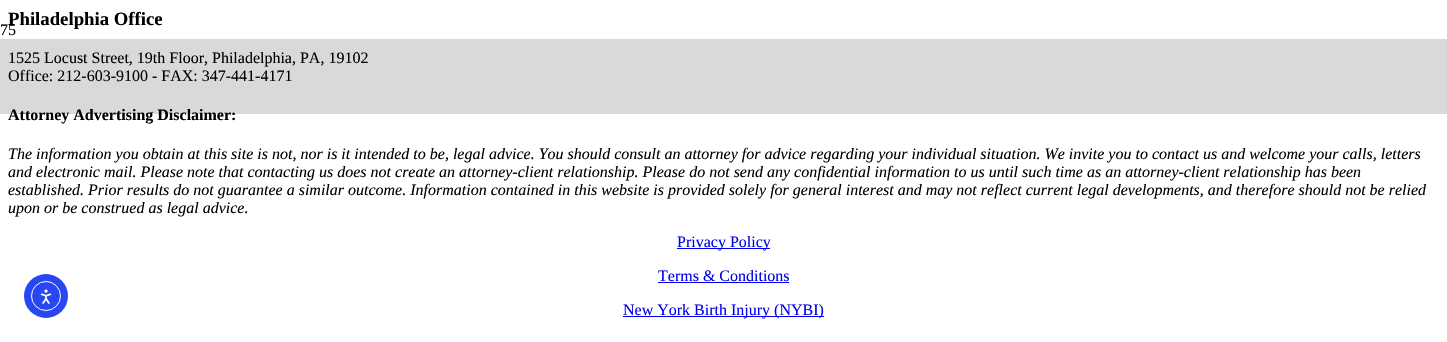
#include "include/core/SkBlurTypes.h"
#include "include/core/SkCanvas.h"
#include "include/core/SkData.h"
#include "include/core/SkFont.h"
#include "include/core/SkFontMgr.h"
#include "include/core/SkImage.h"
#include "include/core/SkMaskFilter.h"
#include "include/core/SkPaint.h"
#include "include/core/SkPathBuilder.h"
#include "include/core/SkTextBlob.h"
#include "include/effects/SkDashPathEffect.h"
#include "include/effects/SkGradientShader.h"
#include "include/utils/SkParsePath.h"

extern sk_sp<SkFontMgr> fontMgr;

static SkFont font(const char* family, int weight, float size, bool italic = false) {
    SkFontStyle style(weight, SkFontStyle::kNormal_Width,
        italic ? SkFontStyle::kItalic_Slant : SkFontStyle::kUpright_Slant);
    SkFont result(fontMgr->matchFamilyStyle(family, style), size);
    result.setSubpixel(true);
    return result;
}

static void drawLabel(SkCanvas* canvas, const char* s, float x, float y, const SkFont& font, SkColor color) {
    SkPaint ink(SkColor4f::FromColor(color));
    ink.setAntiAlias(true);
    canvas->drawString(s, x, y, font, ink);
}

static void fillRect(SkCanvas* canvas, float x, float y, float w, float h, SkColor color) {
    SkPaint ink(SkColor4f::FromColor(color));
    ink.setAntiAlias(true);
    canvas->drawRect(SkRect::MakeXYWH(x, y, w, h), ink);
}

static void drawPhoto(SkCanvas* canvas, const char* path, float x, float y, float w, float h) {
    auto image = SkImages::DeferredFromEncodedData(SkData::MakeFromFileName(path));
    canvas->drawImageRect(image, SkRect::MakeXYWH(x, y, w, h), SkSamplingOptions());
}

void draw(SkCanvas* canvas) {
    SkPaint paint;
    paint.setAntiAlias(true);
    canvas->clear(0xFFFFFFFF);
    SkFont font1 = font("Liberation Serif", 700, 18.75f);
    drawLabel(canvas, "Philadelphia Office", 8, 25, font1, 0xFF000000);
    SkFont font2 = font("Liberation Serif", 400, 16);
    drawLabel(canvas, "1525 Locust Street, 19th Floor, Philadelphia, PA, 19102", 8, 63, font2, 0xFF000000);
    drawLabel(canvas, "Office: 212-603-9100 - FAX: 347-441-4171", 8, 81, font2, 0xFF000000);
    SkFont font3 = font("Liberation Serif", 700, 16);
    drawLabel(canvas, "Attorney Advertising Disclaimer:", 8, 120, font3, 0xFF000000);
    SkFont font4 = font("Liberation Serif", 400, 16, true);
    drawLabel(canvas, "The information you obtain at this site is not, nor is it intended to be, legal advice. You should consult an attorney for advice regarding your individual situation. We invite you to contact us and welcome your calls, letters", 8, 159, font4, 0xFF000000);
    drawLabel(canvas, "and electronic mail. Please note that contacting us does not create an attorney-client relationship. Please do not send any confidential information to us until such time as an attorney-client relationship has been", 8, 177, font4, 0xFF000000);
    drawLabel(canvas, "established. Prior results do not guarantee a similar outcome. Information contained in this website is provided solely for general interest and may not reflect current legal developments, and therefore should not be relied", 8, 195, font4, 0xFF000000);
    drawLabel(canvas, "upon or be construed as legal advice.", 8, 213, font4, 0xFF000000);
    fillRect(canvas, 677, 248, 93, 1, 0xFF0000EE);
    drawLabel(canvas, "Privacy Policy", 677, 247, font2, 0xFF0000EE);
    drawLabel(canvas, "Terms & Conditions", 658, 281, font2, 0xFF0000EE);
    fillRect(canvas, 658, 282, 131, 1, 0xFF0000EE);
    fillRect(canvas, 623, 316, 201, 1, 0xFF0000EE);
    drawLabel(canvas, "New York Birth Injury (NYBI)", 623, 315, font2, 0xFF0000EE);
    drawLabel(canvas, "75", 0, 35, font2, 0xFF000000);
    fillRect(canvas, 0, 39, 1447, 75, 0x26000000);
    paint.setColor(0xFF2847F3);
    canvas->drawCircle(46, 296, 22, paint);
    paint.setStroke(true);
    paint.setStrokeWidth(1);
    paint.setColor(0xFFFFFFFF);
    canvas->drawCircle(46, 296, 14.5f, paint);
    drawPhoto(canvas, "assets/img1.png", 40, 289, 12, 15);
}
